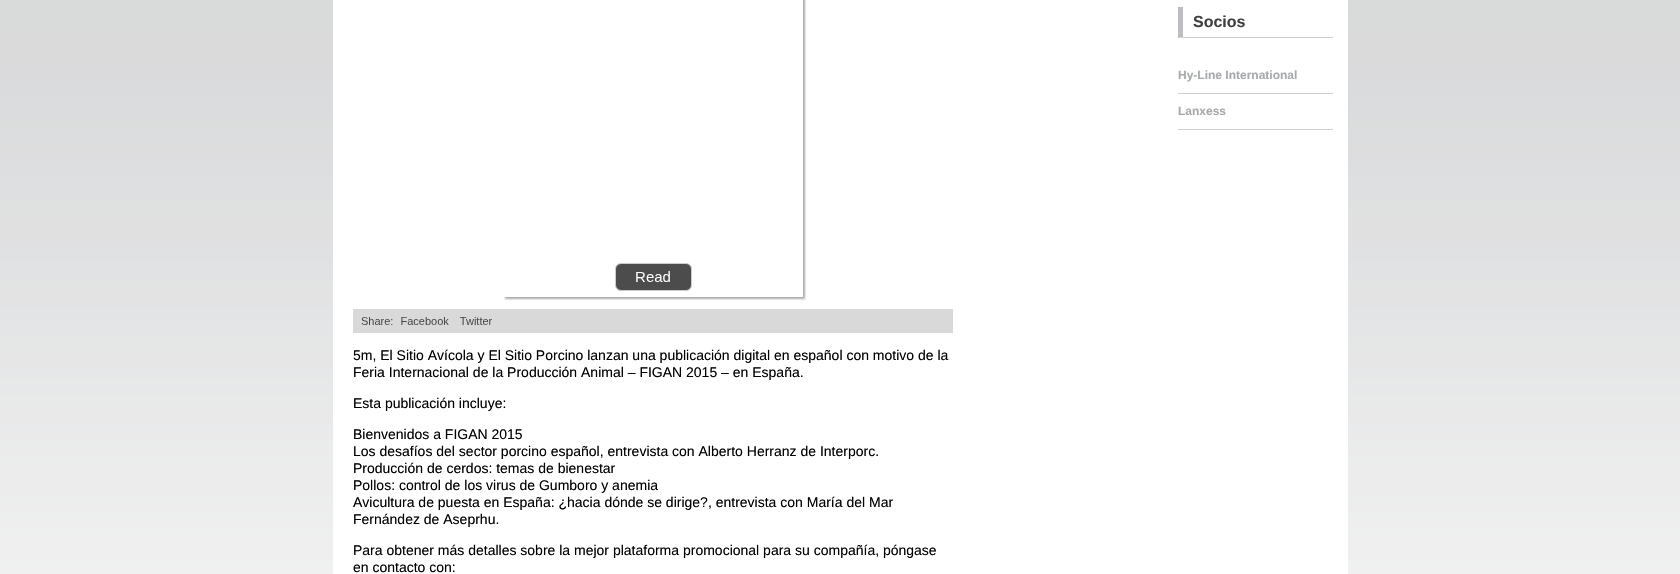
#include "include/core/SkBlurTypes.h"
#include "include/core/SkCanvas.h"
#include "include/core/SkData.h"
#include "include/core/SkFont.h"
#include "include/core/SkFontMgr.h"
#include "include/core/SkImage.h"
#include "include/core/SkMaskFilter.h"
#include "include/core/SkPaint.h"
#include "include/core/SkPathBuilder.h"
#include "include/core/SkTextBlob.h"
#include "include/effects/SkDashPathEffect.h"
#include "include/effects/SkGradientShader.h"
#include "include/utils/SkParsePath.h"

extern sk_sp<SkFontMgr> fontMgr;

static SkFont font(const char* family, int weight, float size, bool italic = false) {
    SkFontStyle style(weight, SkFontStyle::kNormal_Width,
        italic ? SkFontStyle::kItalic_Slant : SkFontStyle::kUpright_Slant);
    SkFont result(fontMgr->matchFamilyStyle(family, style), size);
    result.setSubpixel(true);
    return result;
}

static void drawLabel(SkCanvas* canvas, const char* s, float x, float y, const SkFont& font, SkColor color) {
    SkPaint ink(SkColor4f::FromColor(color));
    ink.setAntiAlias(true);
    canvas->drawString(s, x, y, font, ink);
}

static void fillRect(SkCanvas* canvas, float x, float y, float w, float h, SkColor color) {
    SkPaint ink(SkColor4f::FromColor(color));
    ink.setAntiAlias(true);
    canvas->drawRect(SkRect::MakeXYWH(x, y, w, h), ink);
}

static void drawPhoto(SkCanvas* canvas, const char* path, float x, float y, float w, float h) {
    auto image = SkImages::DeferredFromEncodedData(SkData::MakeFromFileName(path));
    canvas->drawImageRect(image, SkRect::MakeXYWH(x, y, w, h), SkSamplingOptions());
}

static SkPath parsePath(const char* data, bool evenOdd = false) {
    SkPath result = *SkParsePath::FromSVGString(data);
    if (evenOdd) result.setFillType(SkPathFillType::kEvenOdd);
    return result;
}

void draw(SkCanvas* canvas) {
    SkPaint paint;
    paint.setAntiAlias(true);
    canvas->clear(0xFFFFFFFF);
    drawPhoto(canvas, "assets/img1.png", 0, 0, 1680, 574);
    fillRect(canvas, 333, 0, 1015, 574, 0xFFFFFFFF);
    paint.setColor(0xFFCFCFCF);
    canvas->drawPath(parsePath("M1333 38H1178L1183 37H1333Z"), paint);
    paint.setColor(0xFFBCBDC0);
    canvas->drawPath(parsePath("M1178 38V7H1183V37Z"), paint);
    SkFont font1 = font("Liberation Sans", 700, 16);
    drawLabel(canvas, "Socios", 1193, 27, font1, 0xFF404041);
    fillRect(canvas, 1178, 93, 155, 1, 0xFFCFCFCF);
    SkFont font2 = font("Liberation Sans", 700, 12);
    drawLabel(canvas, "Hy-Line International", 1178, 79, font2, 0xFFA7A9AC);
    fillRect(canvas, 1178, 129, 155, 1, 0xFFCFCFCF);
    drawLabel(canvas, "Lanxess", 1178, 115, font2, 0xFFA7A9AC);
    drawPhoto(canvas, "assets/img2.png", 353, 0, 600, 333);
    SkFont font3 = font("Liberation Sans", 400, 14);
    drawLabel(canvas, "5m, El Sitio Avícola y El Sitio Porcino lanzan una publicación digital en español con motivo de la", 353, 360, font3, 0xFF000000);
    drawLabel(canvas, "Feria Internacional de la Producción Animal – FIGAN 2015 – en España.", 353, 377, font3, 0xFF000000);
    drawLabel(canvas, "Esta publicación incluye:", 353, 408, font3, 0xFF000000);
    drawLabel(canvas, "Bienvenidos a FIGAN 2015", 353, 439, font3, 0xFF000000);
    drawLabel(canvas, "Los desafíos del sector porcino español, entrevista con Alberto Herranz de Interporc.", 353, 456, font3, 0xFF000000);
    drawLabel(canvas, "Producción de cerdos: temas de bienestar", 353, 473, font3, 0xFF000000);
    drawLabel(canvas, "Pollos: control de los virus de Gumboro y anemia", 353, 490, font3, 0xFF000000);
    drawLabel(canvas, "Avicultura de puesta en España: ¿hacia dónde se dirige?, entrevista con María del Mar", 353, 507, font3, 0xFF000000);
    drawLabel(canvas, "Fernández de Aseprhu.", 353, 524, font3, 0xFF000000);
    drawLabel(canvas, "Para obtener más detalles sobre la mejor plataforma promocional para su compañía, póngase", 353, 555, font3, 0xFF000000);
    drawLabel(canvas, "en contacto con:", 353, 572, font3, 0xFF000000);
}
